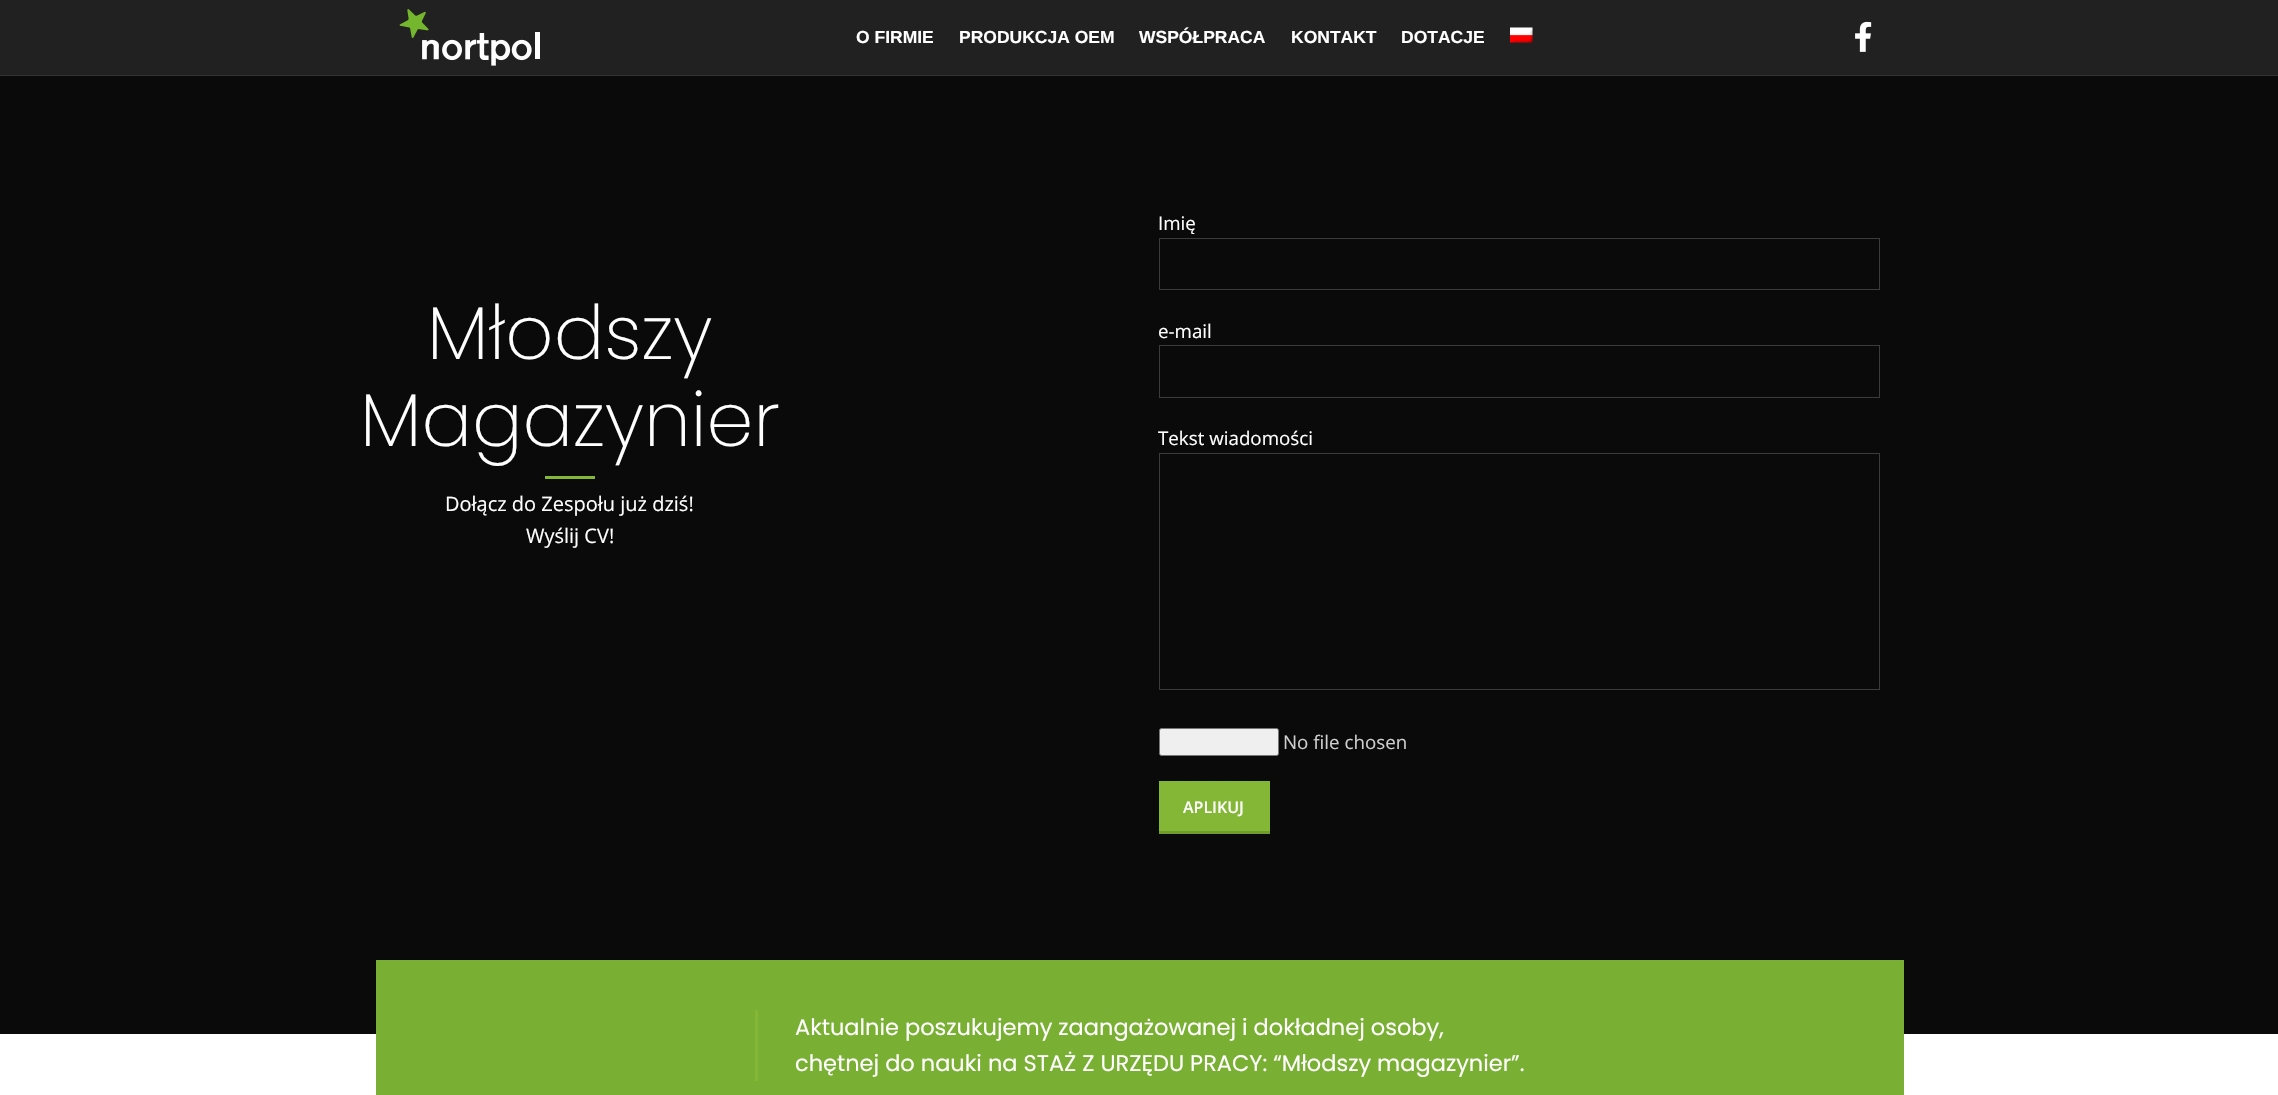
#include "include/core/SkBlurTypes.h"
#include "include/core/SkCanvas.h"
#include "include/core/SkData.h"
#include "include/core/SkFont.h"
#include "include/core/SkFontMgr.h"
#include "include/core/SkImage.h"
#include "include/core/SkMaskFilter.h"
#include "include/core/SkPaint.h"
#include "include/core/SkPathBuilder.h"
#include "include/core/SkTextBlob.h"
#include "include/effects/SkDashPathEffect.h"
#include "include/effects/SkGradientShader.h"
#include "include/utils/SkParsePath.h"

extern sk_sp<SkFontMgr> fontMgr;

static SkFont font(const char* family, int weight, float size, bool italic = false) {
    SkFontStyle style(weight, SkFontStyle::kNormal_Width,
        italic ? SkFontStyle::kItalic_Slant : SkFontStyle::kUpright_Slant);
    SkFont result(fontMgr->matchFamilyStyle(family, style), size);
    result.setSubpixel(true);
    return result;
}

static void drawLabel(SkCanvas* canvas, const char* s, float x, float y, const SkFont& font, SkColor color) {
    SkPaint ink(SkColor4f::FromColor(color));
    ink.setAntiAlias(true);
    canvas->drawString(s, x, y, font, ink);
}

static void fillRect(SkCanvas* canvas, float x, float y, float w, float h, SkColor color) {
    SkPaint ink(SkColor4f::FromColor(color));
    ink.setAntiAlias(true);
    canvas->drawRect(SkRect::MakeXYWH(x, y, w, h), ink);
}

static void drawPhoto(SkCanvas* canvas, const char* path, float x, float y, float w, float h) {
    auto image = SkImages::DeferredFromEncodedData(SkData::MakeFromFileName(path));
    canvas->drawImageRect(image, SkRect::MakeXYWH(x, y, w, h), SkSamplingOptions());
}

void draw(SkCanvas* canvas) {
    SkPaint paint;
    paint.setAntiAlias(true);
    canvas->clear(0xFFFFFFFF);
    fillRect(canvas, 0, 0, 2278, 75, 0xFF212121);
    fillRect(canvas, 0, 75, 2278, 1, 0xFF343434);
    drawPhoto(canvas, "assets/img1.png", 399, 9, 141, 57);
    SkFont font1 = font("Liberation Sans", 700, 17.5f);
    drawLabel(canvas, "O FIRMIE", 856, 43, font1, 0xFFFFFFFF);
    drawLabel(canvas, "PRODUKCJA OEM", 959, 43, font1, 0xFFFFFFFF);
    drawLabel(canvas, "WSPÓŁPRACA", 1139, 43, font1, 0xFFFFFFFF);
    drawLabel(canvas, "KONTAKT", 1291, 43, font1, 0xFFFFFFFF);
    drawLabel(canvas, "DOTACJE", 1401, 43, font1, 0xFFFFFFFF);
    drawPhoto(canvas, "assets/img2.png", 1510, 27, 23, 16);
    drawPhoto(canvas, "assets/img3.png", 1855, 21, 17, 31);
    fillRect(canvas, 0, 76, 2278, 958, 0xFF0A0A0A);
    SkFont font2 = font("Poppins", 200, 75);
    drawLabel(canvas, "Młodszy", 427, 359, font2, 0xFFFFFFFF);
    drawLabel(canvas, "Magazynier", 360, 446, font2, 0xFFFFFFFF);
    fillRect(canvas, 545, 476, 50, 3, 0xFF83B735);
    SkFont font3 = font("Open Sans", 400, 20);
    drawLabel(canvas, "Dołącz do Zespołu już dziś!", 445, 511, font3, 0xFFFFFFFF);
    drawLabel(canvas, "Wyślij CV!", 526, 543, font3, 0xFFFFFFFF);
    SkFont font4 = font("Open Sans", 400, 18.75f);
    drawLabel(canvas, "Imię", 1158, 230, font4, 0xFFFFFFFF);
    paint.setStroke(true);
    paint.setStrokeWidth(1);
    paint.setColor(0xFF3B3B3B);
    canvas->drawRect(SkRect::MakeXYWH(1159.5f, 238.5f, 720, 51), paint);
    drawLabel(canvas, "e-mail", 1158, 338, font4, 0xFFFFFFFF);
    canvas->drawRect(SkRect::MakeXYWH(1159.5f, 345.5f, 720, 52), paint);
    drawLabel(canvas, "Tekst wiadomości", 1158, 445, font4, 0xFFFFFFFF);
    canvas->drawRect(SkRect::MakeXYWH(1159.5f, 453.5f, 720, 236), paint);
    paint.setStroke(false);
    paint.setColor(0xFFEFEFEF);
    canvas->drawRoundRect(SkRect::MakeXYWH(1159.5f, 728.5f, 119, 27), 2, 2, paint);
    paint.setStroke(true);
    paint.setColor(0xFF767676);
    canvas->drawRoundRect(SkRect::MakeXYWH(1159.5f, 728.5f, 119, 27), 2, 2, paint);
    drawLabel(canvas, "No file chosen", 1283, 749, font4, 0xFFCECECE);
    fillRect(canvas, 1159, 781, 111, 50, 0xFF83B735);
    fillRect(canvas, 1159, 831, 111, 3, 0xFF6F9C2D);
    SkFont font5 = font("Open Sans", 600, 16);
    drawLabel(canvas, "APLIKUJ", 1183, 813, font5, 0xFFFFFFFF);
    fillRect(canvas, 376, 960, 1528, 135, 0xFF79AF33);
    fillRect(canvas, 755, 1010, 3, 71, 0xFF83B735);
    SkFont font6 = font("Poppins", 400, 22.5f);
    drawLabel(canvas, "Aktualnie poszukujemy zaangażowanej i dokładnej osoby,", 795, 1035, font6, 0xFFFFFFFF);
    drawLabel(canvas, "chętnej do nauki na STAŻ Z URZĘDU PRACY: “Młodszy magazynier”.", 795, 1071, font6, 0xFFFFFFFF);
}
